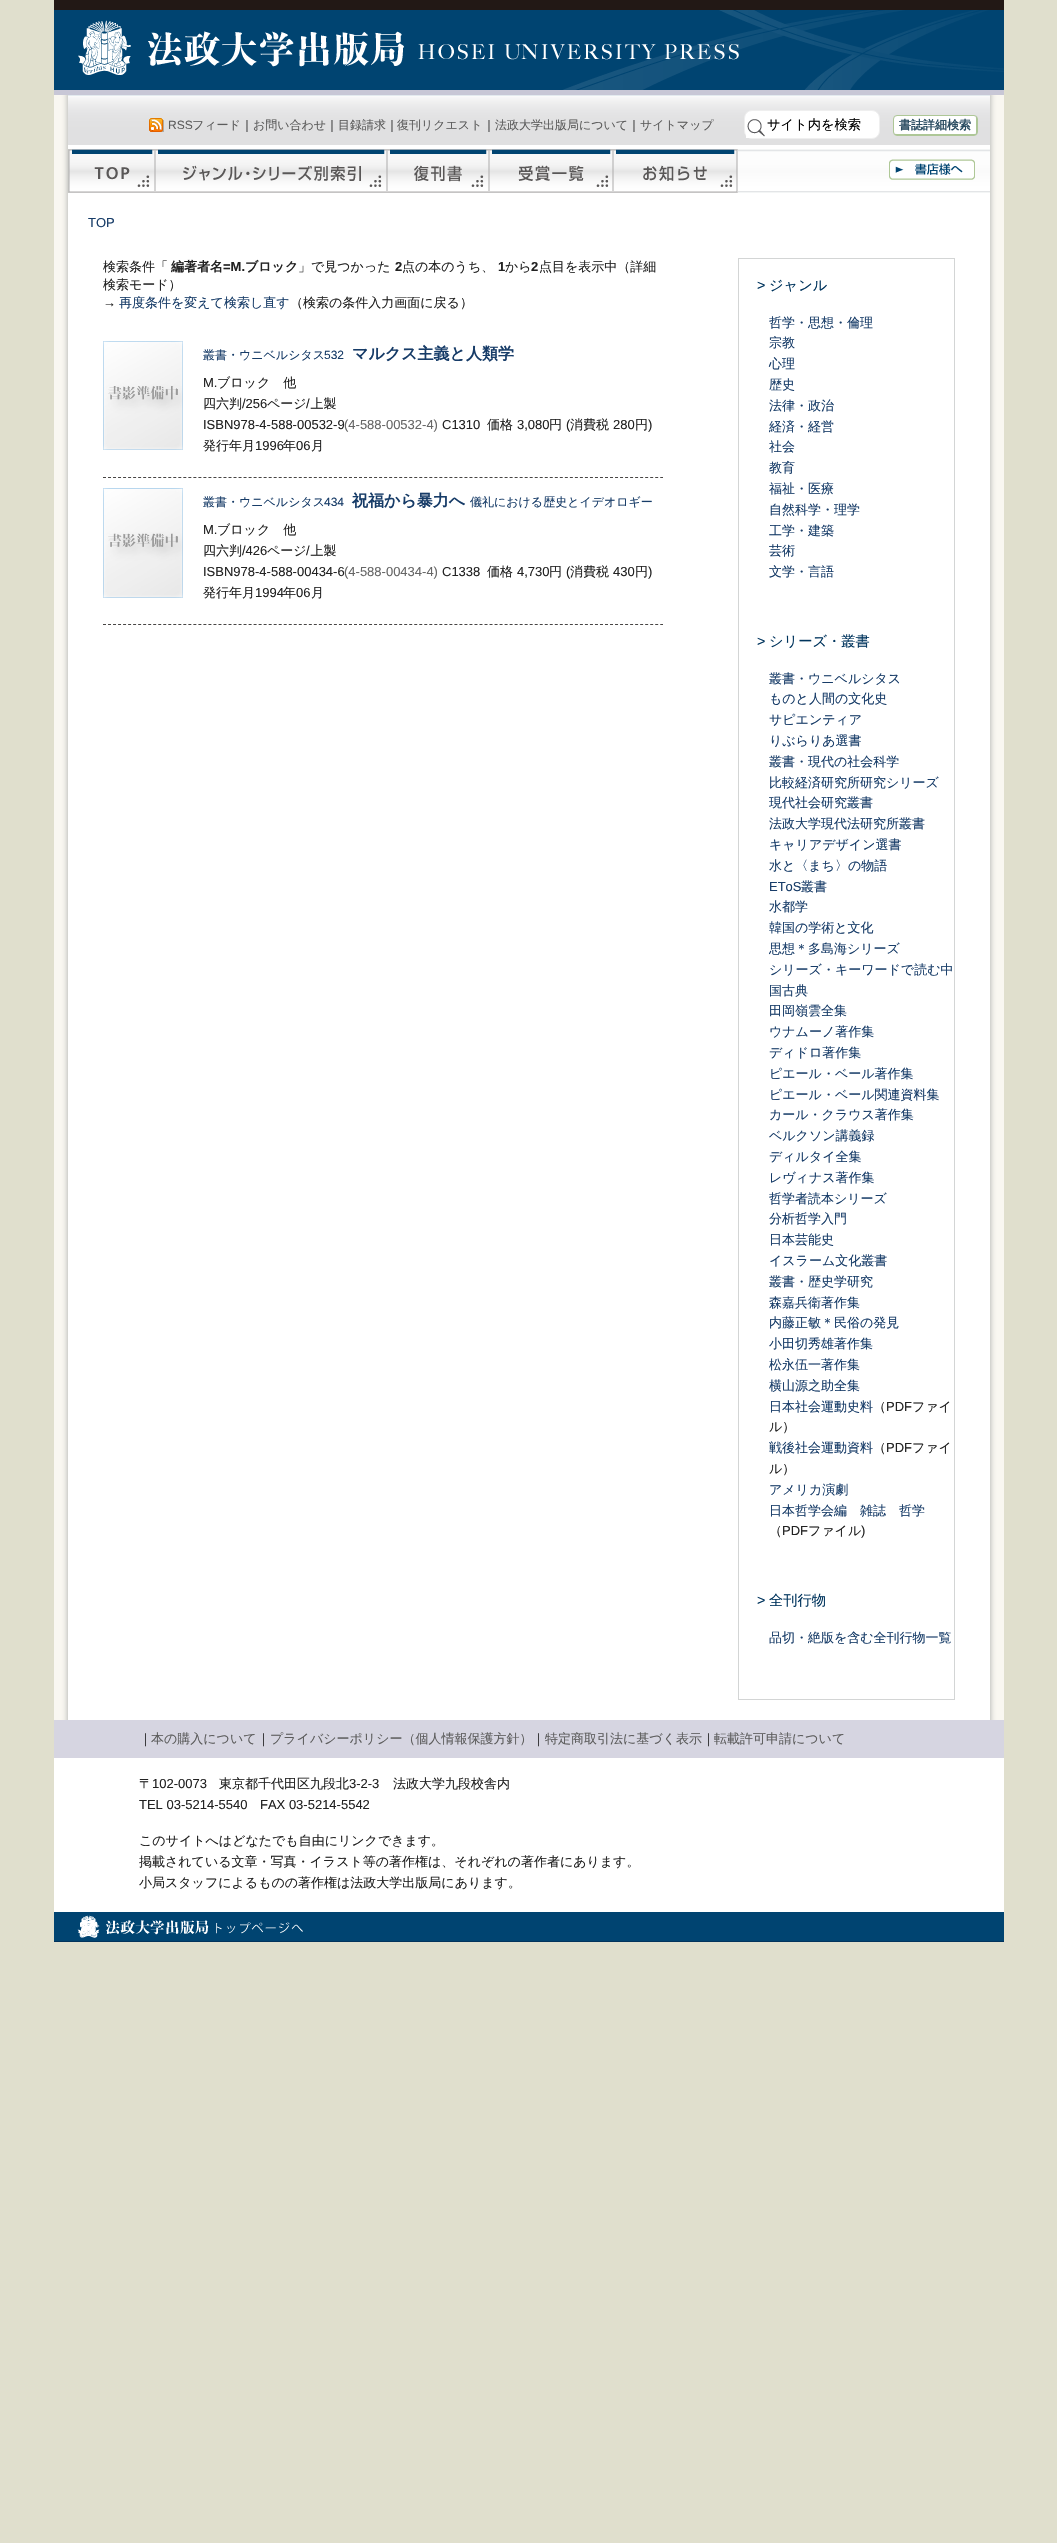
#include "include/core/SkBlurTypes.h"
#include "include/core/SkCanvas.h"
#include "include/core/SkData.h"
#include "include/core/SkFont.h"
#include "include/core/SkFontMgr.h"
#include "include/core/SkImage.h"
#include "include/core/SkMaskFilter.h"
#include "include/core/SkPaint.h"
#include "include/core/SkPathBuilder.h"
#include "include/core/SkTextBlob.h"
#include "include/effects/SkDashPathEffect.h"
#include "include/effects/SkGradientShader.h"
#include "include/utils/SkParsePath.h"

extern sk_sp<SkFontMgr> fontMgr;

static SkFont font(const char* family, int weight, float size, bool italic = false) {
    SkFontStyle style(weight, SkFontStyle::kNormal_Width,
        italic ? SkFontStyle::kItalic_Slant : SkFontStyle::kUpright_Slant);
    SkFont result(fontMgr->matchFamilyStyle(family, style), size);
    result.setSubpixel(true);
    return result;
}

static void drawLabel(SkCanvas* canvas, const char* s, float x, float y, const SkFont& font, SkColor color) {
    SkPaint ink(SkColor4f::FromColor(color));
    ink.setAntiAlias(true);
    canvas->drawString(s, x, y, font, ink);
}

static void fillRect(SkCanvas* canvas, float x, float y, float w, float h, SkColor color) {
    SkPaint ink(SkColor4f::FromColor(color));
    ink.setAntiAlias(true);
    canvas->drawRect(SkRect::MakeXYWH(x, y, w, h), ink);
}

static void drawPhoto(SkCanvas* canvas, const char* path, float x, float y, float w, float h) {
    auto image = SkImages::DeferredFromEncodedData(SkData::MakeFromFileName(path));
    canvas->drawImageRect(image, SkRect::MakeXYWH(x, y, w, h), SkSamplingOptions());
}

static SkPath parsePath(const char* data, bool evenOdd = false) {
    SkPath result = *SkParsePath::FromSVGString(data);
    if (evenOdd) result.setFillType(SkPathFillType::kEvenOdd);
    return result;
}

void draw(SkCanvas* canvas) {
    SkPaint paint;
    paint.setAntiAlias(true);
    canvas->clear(0xFFE0DFCD);
    fillRect(canvas, 54, 1758, 950, 154, 0xFFFFFFFF);
    drawPhoto(canvas, "assets/img1.png", 54, 0, 950, 90);
    fillRect(canvas, 54, 90, 950, 5, 0xFFC8C7D6);
    drawPhoto(canvas, "assets/img2.png", 54, 95, 950, 1625);
    drawPhoto(canvas, "assets/img3.png", 68, 95, 922, 50);
    drawPhoto(canvas, "assets/img4.png", 149, 118, 15, 14);
    SkFont font1 = font("Liberation Sans", 400, 12);
    drawLabel(canvas, "RSS", 168, 129, font1, 0xFF5C5C5C);
    SkFont font2 = font("WenQuanYi Zen Hei", 500, 12);
    drawLabel(canvas, "フィード", 192, 129, font2, 0xFF5C5C5C);
    drawLabel(canvas, "｜", 241, 129, font2, 0xFF222222);
    drawLabel(canvas, "お問い合わせ", 253, 129, font2, 0xFF5C5C5C);
    drawLabel(canvas, "｜", 326, 129, font2, 0xFF222222);
    drawLabel(canvas, "目録請求", 338, 129, font2, 0xFF5C5C5C);
    drawLabel(canvas, "｜", 386, 129, font2, 0xFF222222);
    drawLabel(canvas, "復刊リクエスト", 397, 129, font2, 0xFF5C5C5C);
    drawLabel(canvas, "｜", 483, 129, font2, 0xFF222222);
    drawLabel(canvas, "法政大学出版局について", 495, 129, font2, 0xFF5C5C5C);
    drawLabel(canvas, "｜", 628, 129, font2, 0xFF222222);
    drawLabel(canvas, "サイトマップ", 640, 129, font2, 0xFF5C5C5C);
    paint.setColor(0xFFFFFFFF);
    canvas->drawRoundRect(SkRect::MakeXYWH(744.5f, 110.5f, 135, 28), 7.5f, 7.5f, paint);
    paint.setStroke(true);
    paint.setStrokeWidth(1);
    paint.setColor(0xFFEFEFEF);
    canvas->drawRoundRect(SkRect::MakeXYWH(744.5f, 110.5f, 135, 28), 7.5f, 7.5f, paint);
    drawPhoto(canvas, "assets/img5.png", 746, 119, 19, 19);
    SkFont font3 = font("WenQuanYi Zen Hei", 500, 13.25f);
    drawLabel(canvas, "サイト内を検索", 767, 129, font3, 0xFF000000);
    paint.setStroke(false);
    paint.setColor(0xFFFFFFFF);
    canvas->drawPath(parsePath("M897 116H974C975 116 976 117 976 119V132C976 133 975 134 974 134H897C895 134 894 133 894 132V119C894 117 895 116 897 116Z"), paint);
    paint.setStroke(true);
    paint.setColor(0xFFAEC797);
    canvas->drawRoundRect(SkRect::MakeXYWH(893.5f, 115.5f, 84, 20), 3.5f, 3.5f, paint);
    SkFont font4 = font("WenQuanYi Zen Hei", 700, 12);
    drawLabel(canvas, "書誌詳細検索", 899, 129, font4, 0xFF2A4C61);
    fillRect(canvas, 976, 117, 1, 17, 0xFFAEC797);
    fillRect(canvas, 895, 134, 81, 1, 0xFFAEC797);
    fillRect(canvas, 738, 149, 252, 44, 0xFFF3F5F5);
    drawPhoto(canvas, "assets/img6.png", 738, 150, 252, 42);
    drawPhoto(canvas, "assets/img7.png", 68, 149, 87, 44);
    drawPhoto(canvas, "assets/img8.png", 155, 149, 232, 44);
    drawPhoto(canvas, "assets/img9.png", 387, 149, 102, 44);
    drawPhoto(canvas, "assets/img10.png", 489, 149, 124, 44);
    drawPhoto(canvas, "assets/img11.png", 613, 149, 125, 44);
    drawPhoto(canvas, "assets/img12.png", 889, 159, 86, 21);
    SkFont font5 = font("Liberation Sans", 400, 13);
    drawLabel(canvas, "TOP", 88, 227, font5, 0xFF173C68);
    SkFont font6 = font("WenQuanYi Zen Hei", 500, 13);
    drawLabel(canvas, "検索条件「", 103, 271, font6, 0xFF222222);
    SkFont font7 = font("WenQuanYi Zen Hei", 700, 13);
    drawLabel(canvas, "編著者名", 171, 271, font7, 0xFF222222);
    SkFont font8 = font("Liberation Sans", 700, 13);
    drawLabel(canvas, "=M.", 223, 271, font8, 0xFF222222);
    drawLabel(canvas, "ブロック", 245, 271, font7, 0xFF222222);
    drawLabel(canvas, "」で見つかった", 298, 271, font6, 0xFF222222);
    drawLabel(canvas, "2", 395, 271, font8, 0xFF222222);
    drawLabel(canvas, "点の本のうち、", 402, 271, font6, 0xFF222222);
    drawLabel(canvas, "1", 498, 271, font8, 0xFF222222);
    drawLabel(canvas, "から", 505, 271, font6, 0xFF222222);
    drawLabel(canvas, "2", 531, 271, font8, 0xFF222222);
    drawLabel(canvas, "点目を表示中（詳細", 539, 271, font6, 0xFF222222);
    drawLabel(canvas, "検索モード）", 103, 289, font6, 0xFF222222);
    drawLabel(canvas, "→", 103, 307, font5, 0xFF222222);
    drawLabel(canvas, "再度条件を変えて検索し直す", 119, 307, font6, 0xFF173C68);
    drawLabel(canvas, "（検索の条件入力画面に戻る）", 290, 307, font6, 0xFF222222);
    paint.setColor(0xFF474544);
    paint.setPathEffect(SkDashPathEffect::Make({{3, 2.02f}}, 0));
    canvas->drawPath(parsePath("M103 477.5H663"), paint);
    paint.setPathEffect(nullptr);
    drawPhoto(canvas, "assets/img13.png", 103, 341, 80, 109);
    drawLabel(canvas, "叢書・ウニベルシタス", 203, 359, font2, 0xFF173C68);
    drawLabel(canvas, "532", 324, 359, font1, 0xFF173C68);
    SkFont font9 = font("WenQuanYi Zen Hei", 700, 16);
    drawLabel(canvas, "マルクス主義と人類学", 352, 359, font9, 0xFF173C68);
    drawLabel(canvas, "M.", 203, 387, font5, 0xFF222222);
    drawLabel(canvas, "ブロック　他", 217, 387, font6, 0xFF222222);
    drawLabel(canvas, "四六判", 203, 408, font6, 0xFF222222);
    drawLabel(canvas, "/256", 242, 408, font5, 0xFF222222);
    drawLabel(canvas, "ページ 上製", 267, 408, font6, 0xFF222222);
    drawLabel(canvas, "/", 306, 408, font5, 0xFF222222);
    drawLabel(canvas, "ISBN978-4-588-00532-9", 203, 429, font5, 0xFF222222);
    drawLabel(canvas, "(4-588-00532-4)", 344, 429, font5, 0xFF666666);
    drawLabel(canvas, "C1310", 442, 429, font5, 0xFF222222);
    drawLabel(canvas, "価格", 487, 429, font6, 0xFF222222);
    drawLabel(canvas, "3,080", 517, 429, font5, 0xFF222222);
    drawLabel(canvas, "円", 549, 429, font6, 0xFF222222);
    drawLabel(canvas, "(", 566, 429, font5, 0xFF222222);
    drawLabel(canvas, "消費税", 570, 429, font6, 0xFF222222);
    drawLabel(canvas, "280", 613, 429, font5, 0xFF222222);
    drawLabel(canvas, "円", 635, 429, font6, 0xFF222222);
    drawLabel(canvas, ")", 648, 429, font5, 0xFF222222);
    drawLabel(canvas, "発行年月", 203, 450, font6, 0xFF222222);
    drawLabel(canvas, "1996", 255, 450, font5, 0xFF222222);
    drawLabel(canvas, "年", 283, 450, font6, 0xFF222222);
    drawLabel(canvas, "06", 296, 450, font5, 0xFF222222);
    drawLabel(canvas, "月", 311, 450, font6, 0xFF222222);
    paint.setPathEffect(SkDashPathEffect::Make({{3, 2.02f}}, 0));
    canvas->drawPath(parsePath("M103 624.5H663"), paint);
    paint.setPathEffect(nullptr);
    drawPhoto(canvas, "assets/img14.png", 103, 488, 80, 110);
    drawLabel(canvas, "叢書・ウニベルシタス", 203, 506, font2, 0xFF173C68);
    drawLabel(canvas, "434", 324, 506, font1, 0xFF173C68);
    drawLabel(canvas, "祝福から暴力へ", 352, 506, font9, 0xFF173C68);
    drawLabel(canvas, "儀礼における歴史とイデオロギー", 470, 506, font2, 0xFF173C68);
    drawLabel(canvas, "M.", 203, 534, font5, 0xFF222222);
    drawLabel(canvas, "ブロック　他", 217, 534, font6, 0xFF222222);
    drawLabel(canvas, "四六判", 203, 555, font6, 0xFF222222);
    drawLabel(canvas, "/426", 242, 555, font5, 0xFF222222);
    drawLabel(canvas, "ページ 上製", 267, 555, font6, 0xFF222222);
    drawLabel(canvas, "/", 306, 555, font5, 0xFF222222);
    drawLabel(canvas, "ISBN978-4-588-00434-6", 203, 576, font5, 0xFF222222);
    drawLabel(canvas, "(4-588-00434-4)", 344, 576, font5, 0xFF666666);
    drawLabel(canvas, "C1338", 442, 576, font5, 0xFF222222);
    drawLabel(canvas, "価格", 487, 576, font6, 0xFF222222);
    drawLabel(canvas, "4,730", 517, 576, font5, 0xFF222222);
    drawLabel(canvas, "円", 549, 576, font6, 0xFF222222);
    drawLabel(canvas, "(", 566, 576, font5, 0xFF222222);
    drawLabel(canvas, "消費税", 570, 576, font6, 0xFF222222);
    drawLabel(canvas, "430", 613, 576, font5, 0xFF222222);
    drawLabel(canvas, "円", 635, 576, font6, 0xFF222222);
    drawLabel(canvas, ")", 648, 576, font5, 0xFF222222);
    drawLabel(canvas, "発行年月", 203, 597, font6, 0xFF222222);
    drawLabel(canvas, "1994", 255, 597, font5, 0xFF222222);
    drawLabel(canvas, "年", 283, 597, font6, 0xFF222222);
    drawLabel(canvas, "06", 296, 597, font5, 0xFF222222);
    drawLabel(canvas, "月", 311, 597, font6, 0xFF222222);
    paint.setColor(0xFFD3D5D5);
    canvas->drawRect(SkRect::MakeXYWH(738.5f, 258.5f, 216, 1441), paint);
    SkFont font10 = font("Liberation Sans", 400, 14.25f);
    drawLabel(canvas, ">", 757, 290, font10, 0xFF00345D);
    SkFont font11 = font("WenQuanYi Zen Hei", 500, 14.25f);
    drawLabel(canvas, "ジャンル", 769, 290, font11, 0xFF00345D);
    drawLabel(canvas, "哲学・思想・倫理", 769, 327, font6, 0xFF173C68);
    drawLabel(canvas, "宗教", 769, 347, font6, 0xFF173C68);
    drawLabel(canvas, "心理", 769, 368, font6, 0xFF173C68);
    drawLabel(canvas, "歴史", 769, 389, font6, 0xFF173C68);
    drawLabel(canvas, "法律・政治", 769, 410, font6, 0xFF173C68);
    drawLabel(canvas, "経済・経営", 769, 431, font6, 0xFF173C68);
    drawLabel(canvas, "社会", 769, 451, font6, 0xFF173C68);
    drawLabel(canvas, "教育", 769, 472, font6, 0xFF173C68);
    drawLabel(canvas, "福祉・医療", 769, 493, font6, 0xFF173C68);
    drawLabel(canvas, "自然科学・理学", 769, 514, font6, 0xFF173C68);
    drawLabel(canvas, "工学・建築", 769, 535, font6, 0xFF173C68);
    drawLabel(canvas, "芸術", 769, 555, font6, 0xFF173C68);
    drawLabel(canvas, "文学・言語", 769, 576, font6, 0xFF173C68);
    drawLabel(canvas, ">", 757, 646, font10, 0xFF00345D);
    drawLabel(canvas, "シリーズ・叢書", 769, 646, font11, 0xFF00345D);
    drawLabel(canvas, "叢書・ウニベルシタス", 769, 683, font6, 0xFF173C68);
    drawLabel(canvas, "ものと人間の文化史", 769, 703, font6, 0xFF173C68);
    drawLabel(canvas, "サピエンティア", 769, 724, font6, 0xFF173C68);
    drawLabel(canvas, "りぶらりあ選書", 769, 745, font6, 0xFF173C68);
    drawLabel(canvas, "叢書・現代の社会科学", 769, 766, font6, 0xFF173C68);
    drawLabel(canvas, "比較経済研究所研究シリーズ", 769, 787, font6, 0xFF173C68);
    drawLabel(canvas, "現代社会研究叢書", 769, 807, font6, 0xFF173C68);
    drawLabel(canvas, "法政大学現代法研究所叢書", 769, 828, font6, 0xFF173C68);
    drawLabel(canvas, "キャリアデザイン選書", 769, 849, font6, 0xFF173C68);
    drawLabel(canvas, "水と〈まち〉の物語", 769, 870, font6, 0xFF173C68);
    drawLabel(canvas, "EToS", 769, 891, font5, 0xFF173C68);
    drawLabel(canvas, "叢書", 801, 891, font6, 0xFF173C68);
    drawLabel(canvas, "水都学", 769, 911, font6, 0xFF173C68);
    drawLabel(canvas, "韓国の学術と文化", 769, 932, font6, 0xFF173C68);
    drawLabel(canvas, "思想＊多島海シリーズ", 769, 953, font6, 0xFF173C68);
    drawLabel(canvas, "シリーズ・キーワードで読む中", 769, 974, font6, 0xFF173C68);
    drawLabel(canvas, "国古典", 769, 995, font6, 0xFF173C68);
    drawLabel(canvas, "田岡嶺雲全集", 769, 1015, font6, 0xFF173C68);
    drawLabel(canvas, "ウナムーノ著作集", 769, 1036, font6, 0xFF173C68);
    drawLabel(canvas, "ディドロ著作集", 769, 1057, font6, 0xFF173C68);
    drawLabel(canvas, "ピエール・ベール著作集", 769, 1078, font6, 0xFF173C68);
    drawLabel(canvas, "ピエール・ベール関連資料集", 769, 1099, font6, 0xFF173C68);
    drawLabel(canvas, "カール・クラウス著作集", 769, 1119, font6, 0xFF173C68);
    drawLabel(canvas, "ベルクソン講義録", 769, 1140, font6, 0xFF173C68);
    drawLabel(canvas, "ディルタイ全集", 769, 1161, font6, 0xFF173C68);
    drawLabel(canvas, "レヴィナス著作集", 769, 1182, font6, 0xFF173C68);
    drawLabel(canvas, "哲学者読本シリーズ", 769, 1203, font6, 0xFF173C68);
    drawLabel(canvas, "分析哲学入門", 769, 1223, font6, 0xFF173C68);
    drawLabel(canvas, "日本芸能史", 769, 1244, font6, 0xFF173C68);
    drawLabel(canvas, "イスラーム文化叢書", 769, 1265, font6, 0xFF173C68);
    drawLabel(canvas, "叢書・歴史学研究", 769, 1286, font6, 0xFF173C68);
    drawLabel(canvas, "森嘉兵衛著作集", 769, 1307, font6, 0xFF173C68);
    drawLabel(canvas, "内藤正敏＊民俗の発見", 769, 1327, font6, 0xFF173C68);
    drawLabel(canvas, "小田切秀雄著作集", 769, 1348, font6, 0xFF173C68);
    drawLabel(canvas, "松永伍一著作集", 769, 1369, font6, 0xFF173C68);
    drawLabel(canvas, "横山源之助全集", 769, 1390, font6, 0xFF173C68);
    drawLabel(canvas, "日本社会運動史料", 769, 1411, font6, 0xFF173C68);
    drawLabel(canvas, "（", 873, 1411, font6, 0xFF222222);
    drawLabel(canvas, "PDF", 886, 1411, font5, 0xFF222222);
    drawLabel(canvas, "ファイ", 912, 1411, font6, 0xFF222222);
    drawLabel(canvas, "ル）", 769, 1431, font6, 0xFF222222);
    drawLabel(canvas, "戦後社会運動資料", 769, 1452, font6, 0xFF173C68);
    drawLabel(canvas, "（", 873, 1452, font6, 0xFF222222);
    drawLabel(canvas, "PDF", 886, 1452, font5, 0xFF222222);
    drawLabel(canvas, "ファイ", 912, 1452, font6, 0xFF222222);
    drawLabel(canvas, "ル）", 769, 1473, font6, 0xFF222222);
    drawLabel(canvas, "アメリカ演劇", 769, 1494, font6, 0xFF173C68);
    drawLabel(canvas, "日本哲学会編　雑誌　哲学", 769, 1515, font6, 0xFF173C68);
    drawLabel(canvas, "（", 769, 1535, font6, 0xFF222222);
    drawLabel(canvas, "PDF", 782, 1535, font5, 0xFF222222);
    drawLabel(canvas, "ファイル", 808, 1535, font6, 0xFF222222);
    drawLabel(canvas, ")", 861, 1535, font5, 0xFF222222);
    drawLabel(canvas, ">", 757, 1605, font10, 0xFF00345D);
    drawLabel(canvas, "全刊行物", 769, 1605, font11, 0xFF00345D);
    drawLabel(canvas, "品切・絶版を含む全刊行物一覧", 769, 1642, font6, 0xFF173C68);
    fillRect(canvas, 54, 1720, 950, 38, 0xFFD6D5E1);
    drawLabel(canvas, "｜", 139, 1743, font6, 0xFF222222);
    drawLabel(canvas, "本の購入について", 151, 1743, font6, 0xFF5C5C5C);
    drawLabel(canvas, "｜", 257, 1743, font6, 0xFF222222);
    drawLabel(canvas, "プライバシーポリシー（個人情報保護方針）", 270, 1743, font6, 0xFF5C5C5C);
    drawLabel(canvas, "｜", 532, 1743, font6, 0xFF222222);
    drawLabel(canvas, "特定商取引法に基づく表示", 545, 1743, font6, 0xFF5C5C5C);
    drawLabel(canvas, "｜", 702, 1743, font6, 0xFF222222);
    drawLabel(canvas, "転載許可申請について", 714, 1743, font6, 0xFF5C5C5C);
    drawLabel(canvas, "〒", 139, 1788, font6, 0xFF222222);
    drawLabel(canvas, "102-0073", 152, 1788, font5, 0xFF222222);
    drawLabel(canvas, "東京都千代田区九段北", 219, 1788, font6, 0xFF222222);
    drawLabel(canvas, "3-2-3", 349, 1788, font5, 0xFF222222);
    drawLabel(canvas, "法政大学九段校舎内", 393, 1788, font6, 0xFF222222);
    drawLabel(canvas, "TEL 03-5214-5540", 139, 1809, font5, 0xFF222222);
    drawLabel(canvas, "FAX 03-5214-5542", 260, 1809, font5, 0xFF222222);
    drawLabel(canvas, "このサイトへはどなたでも自由にリンクできます。", 139, 1845, font6, 0xFF222222);
    drawLabel(canvas, "掲載されている文章・写真・イラスト等の著作権は、それぞれの著作者にあります。", 139, 1866, font6, 0xFF222222);
    drawLabel(canvas, "小局スタッフによるものの著作権は法政大学出版局にあります。", 139, 1887, font6, 0xFF222222);
    fillRect(canvas, 54, 1941, 950, 1, 0xFF02335C);
    drawPhoto(canvas, "assets/img15.png", 54, 1912, 950, 29);
}
